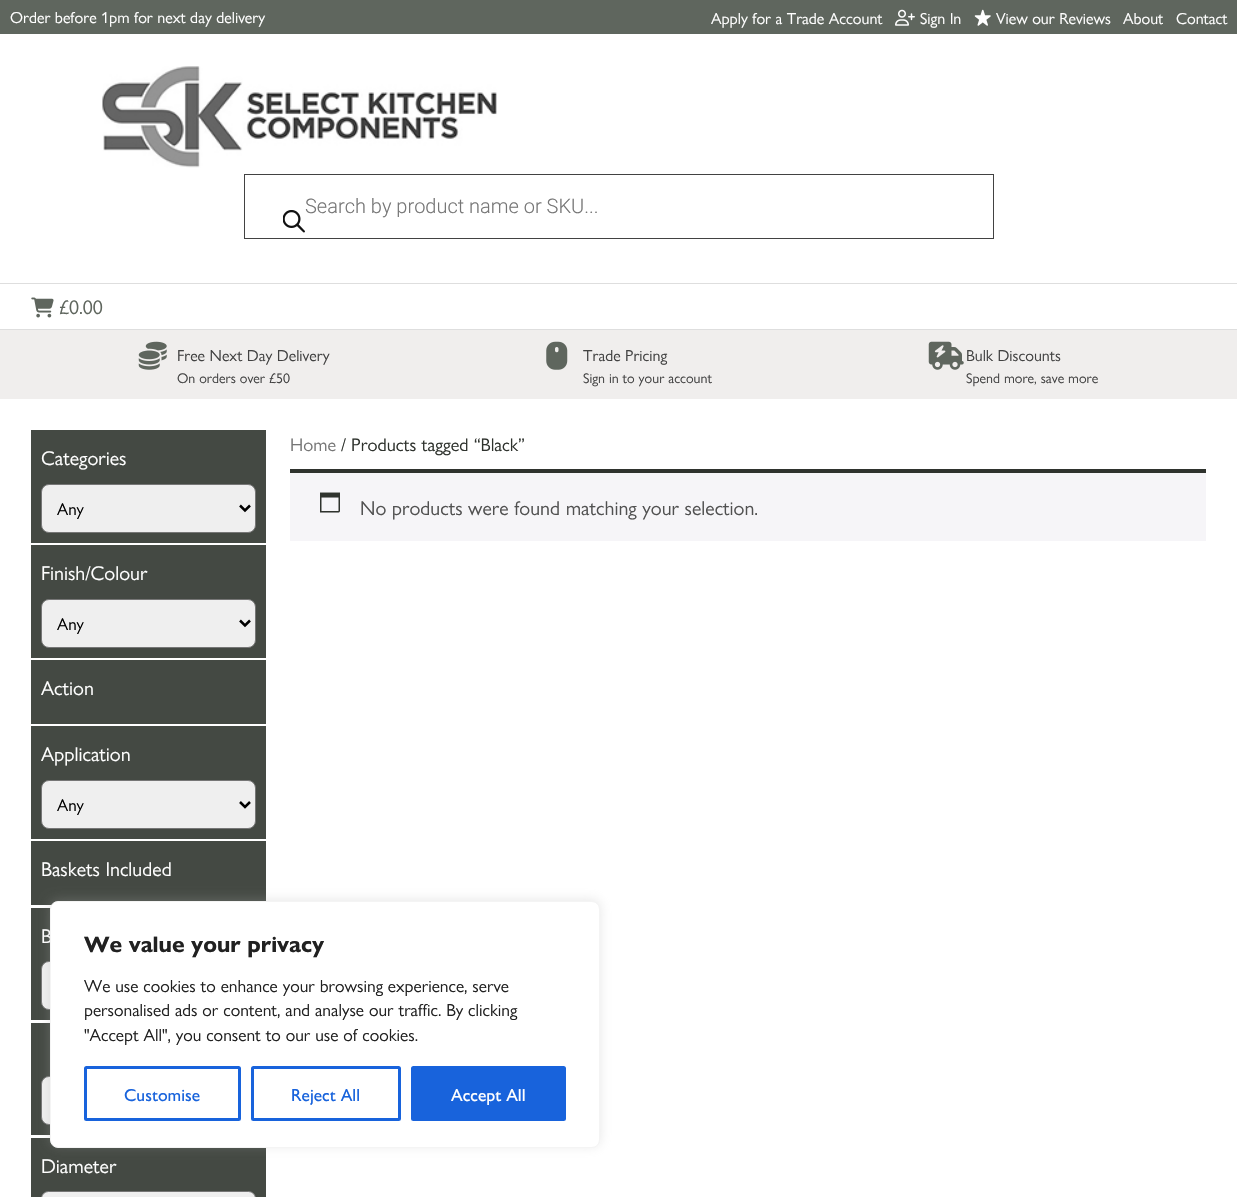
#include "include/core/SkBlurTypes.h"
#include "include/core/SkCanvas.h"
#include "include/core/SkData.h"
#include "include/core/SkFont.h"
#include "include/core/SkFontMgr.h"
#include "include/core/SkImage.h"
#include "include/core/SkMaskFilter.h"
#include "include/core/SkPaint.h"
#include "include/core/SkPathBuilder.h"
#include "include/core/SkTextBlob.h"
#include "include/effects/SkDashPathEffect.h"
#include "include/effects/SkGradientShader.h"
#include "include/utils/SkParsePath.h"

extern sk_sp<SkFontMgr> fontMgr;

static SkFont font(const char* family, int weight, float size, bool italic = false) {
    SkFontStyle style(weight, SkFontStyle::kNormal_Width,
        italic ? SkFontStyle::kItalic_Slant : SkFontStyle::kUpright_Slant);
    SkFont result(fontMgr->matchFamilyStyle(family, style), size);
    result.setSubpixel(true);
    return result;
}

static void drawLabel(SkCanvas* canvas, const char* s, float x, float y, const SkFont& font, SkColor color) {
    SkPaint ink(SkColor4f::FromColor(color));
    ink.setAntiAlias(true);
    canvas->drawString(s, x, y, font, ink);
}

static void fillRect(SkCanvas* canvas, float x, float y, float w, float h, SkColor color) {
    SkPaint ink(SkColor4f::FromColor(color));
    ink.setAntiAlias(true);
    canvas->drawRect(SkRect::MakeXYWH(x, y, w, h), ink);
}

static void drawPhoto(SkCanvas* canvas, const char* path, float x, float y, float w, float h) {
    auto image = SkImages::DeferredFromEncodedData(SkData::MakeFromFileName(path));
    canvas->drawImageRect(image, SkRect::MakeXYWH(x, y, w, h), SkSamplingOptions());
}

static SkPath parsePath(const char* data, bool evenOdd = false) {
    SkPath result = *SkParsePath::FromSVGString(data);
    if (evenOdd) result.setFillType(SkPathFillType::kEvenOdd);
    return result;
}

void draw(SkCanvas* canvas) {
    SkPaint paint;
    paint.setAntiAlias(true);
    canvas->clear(0xFFFFFFFF);
    fillRect(canvas, 0, 0, 1237, 34, 0xFF5F665E);
    SkFont font1 = font("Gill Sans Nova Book", 400, 16);
    drawLabel(canvas, "Order before 1pm for next day delivery", 10, 23, font1, 0xFFFFFFFF);
    drawLabel(canvas, "Apply for a Trade Account", 711, 24, font1, 0xFFFFFFFF);
    drawPhoto(canvas, "assets/img1.png", 895, 9, 20, 17);
    drawLabel(canvas, "Sign In", 920, 24, font1, 0xFFFFFFFF);
    drawPhoto(canvas, "assets/img2.png", 974, 9, 17, 17);
    drawLabel(canvas, "View our Reviews", 996, 24, font1, 0xFFFFFFFF);
    drawLabel(canvas, "About", 1123, 24, font1, 0xFFFFFFFF);
    drawLabel(canvas, "Contact", 1176, 24, font1, 0xFFFFFFFF);
    drawPhoto(canvas, "assets/img3.png", 102, 66, 395, 102);
    paint.setStroke(true);
    paint.setStrokeWidth(1);
    paint.setColor(0xFF424242);
    canvas->drawRect(SkRect::MakeXYWH(244.5f, 174.5f, 749, 64), paint);
    SkFont font2 = font("Roboto", 300, 20);
    drawLabel(canvas, "Search by product name or SKU...", 305, 213, font2, 0xFF767676);
    drawPhoto(canvas, "assets/img4.png", 283, 210, 22, 23);
    fillRect(canvas, 0, 283, 1237, 1, 0xFFDEDEDE);
    fillRect(canvas, 0, 329, 1237, 1, 0xFFDEDEDE);
    drawPhoto(canvas, "assets/img5.png", 31, 297, 23, 21);
    SkFont font3 = font("Gill Sans Nova Book", 400, 20);
    drawLabel(canvas, "£0.00", 59, 314, font3, 0xFF5F665E);
    fillRect(canvas, 0, 330, 1237, 69, 0xFFF0EEED);
    drawPhoto(canvas, "assets/img6.png", 138, 341, 29, 29);
    drawLabel(canvas, "Free Next Day Delivery", 177, 361, font1, 0xFF424242);
    SkFont font4 = font("Gill Sans Nova Book", 400, 14);
    drawLabel(canvas, "On orders over £50", 177, 383, font4, 0xFF424242);
    drawPhoto(canvas, "assets/img7.png", 546, 341, 22, 29);
    drawLabel(canvas, "Trade Pricing", 583, 361, font1, 0xFF424242);
    drawLabel(canvas, "Sign in to your account", 583, 383, font4, 0xFF424242);
    drawPhoto(canvas, "assets/img8.png", 928, 341, 36, 29);
    drawLabel(canvas, "Bulk Discounts", 966, 361, font1, 0xFF424242);
    drawLabel(canvas, "Spend more, save more", 966, 383, font4, 0xFF424242);
    fillRect(canvas, 31, 430, 235, 113, 0xFF444943);
    drawLabel(canvas, "Categories", 41, 465, font3, 0xFFFFFFFF);
    paint.setStroke(false);
    paint.setColor(0xFFEFEFEF);
    canvas->drawRoundRect(SkRect::MakeXYWH(41.5f, 484.5f, 214, 48), 7.5f, 7.5f, paint);
    paint.setStroke(true);
    paint.setColor(0xFF767676);
    canvas->drawRoundRect(SkRect::MakeXYWH(41.5f, 484.5f, 214, 48), 7.5f, 7.5f, paint);
    paint.setStrokeWidth(2.5f);
    paint.setColor(0xFF000000);
    canvas->drawPath(parsePath("M240 505.5L245 510.5L250 505.5"), paint);
    SkFont font5 = font("Gill Sans Nova Book", 400, 17);
    drawLabel(canvas, "Any", 57, 515, font5, 0xFF000000);
    fillRect(canvas, 31, 545, 235, 113, 0xFF444943);
    drawLabel(canvas, "Finish/Colour", 41, 580, font3, 0xFFFFFFFF);
    paint.setStroke(false);
    paint.setColor(0xFFEFEFEF);
    canvas->drawRoundRect(SkRect::MakeXYWH(41.5f, 599.5f, 214, 48), 7.5f, 7.5f, paint);
    paint.setStroke(true);
    paint.setStrokeWidth(1);
    paint.setColor(0xFF767676);
    canvas->drawRoundRect(SkRect::MakeXYWH(41.5f, 599.5f, 214, 48), 7.5f, 7.5f, paint);
    paint.setStrokeWidth(2.5f);
    paint.setColor(0xFF000000);
    canvas->drawPath(parsePath("M240 620.5L245 625.5L250 620.5"), paint);
    drawLabel(canvas, "Any", 57, 630, font5, 0xFF000000);
    fillRect(canvas, 31, 660, 235, 64, 0xFF444943);
    drawLabel(canvas, "Action", 41, 695, font3, 0xFFFFFFFF);
    fillRect(canvas, 31, 726, 235, 113, 0xFF444943);
    drawLabel(canvas, "Application", 41, 761, font3, 0xFFFFFFFF);
    paint.setStroke(false);
    paint.setColor(0xFFEFEFEF);
    canvas->drawRoundRect(SkRect::MakeXYWH(41.5f, 780.5f, 214, 48), 7.5f, 7.5f, paint);
    paint.setStroke(true);
    paint.setStrokeWidth(1);
    paint.setColor(0xFF767676);
    canvas->drawRoundRect(SkRect::MakeXYWH(41.5f, 780.5f, 214, 48), 7.5f, 7.5f, paint);
    paint.setStrokeWidth(2.5f);
    paint.setColor(0xFF000000);
    canvas->drawPath(parsePath("M240 802L245 807L250 802"), paint);
    drawLabel(canvas, "Any", 57, 811, font5, 0xFF000000);
    fillRect(canvas, 31, 841, 235, 64, 0xFF444943);
    drawLabel(canvas, "Baskets Included", 41, 876, font3, 0xFFFFFFFF);
    fillRect(canvas, 31, 908, 20, 112, 0xFF444943);
    drawLabel(canvas, "B", 41, 943, font3, 0xFFFFFFFF);
    paint.setStroke(false);
    paint.setColor(0xFFEFEFEF);
    canvas->drawRoundRect(SkRect::MakeXYWH(41.5f, 961.5f, 214, 48), 7.5f, 7.5f, paint);
    paint.setStroke(true);
    paint.setStrokeWidth(1);
    paint.setColor(0xFF767676);
    canvas->drawRoundRect(SkRect::MakeXYWH(41.5f, 961.5f, 214, 48), 7.5f, 7.5f, paint);
    fillRect(canvas, 31, 1023, 19, 112, 0xFF444943);
    paint.setStroke(false);
    paint.setColor(0xFFEFEFEF);
    canvas->drawRoundRect(SkRect::MakeXYWH(41.5f, 1076.5f, 214, 48), 7.5f, 7.5f, paint);
    paint.setStroke(true);
    paint.setColor(0xFF767676);
    canvas->drawRoundRect(SkRect::MakeXYWH(41.5f, 1076.5f, 214, 48), 7.5f, 7.5f, paint);
    fillRect(canvas, 31, 1138, 235, 59, 0xFF444943);
    drawLabel(canvas, "Diameter", 41, 1173, font3, 0xFFFFFFFF);
    paint.setStroke(false);
    paint.setColor(0xFFEFEFEF);
    canvas->drawRoundRect(SkRect::MakeXYWH(41.5f, 1191.5f, 214, 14), 7.5f, 7.5f, paint);
    paint.setStroke(true);
    paint.setColor(0xFF767676);
    canvas->drawRoundRect(SkRect::MakeXYWH(41.5f, 1191.5f, 214, 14), 7.5f, 7.5f, paint);
    SkFont font6 = font("Gill Sans Nova Book", 400, 18.4f);
    drawLabel(canvas, "Home", 290, 451, font6, 0xFF767676);
    drawLabel(canvas, "/ Products tagged “Black”", 341, 451, font6, 0xFF2F332E);
    fillRect(canvas, 290, 473, 916, 68, 0xFFF6F5F8);
    fillRect(canvas, 290, 469, 916, 4, 0xFF2F332E);
    drawPhoto(canvas, "assets/img9.png", 320, 492, 20, 21);
    drawLabel(canvas, "No products were found matching your selection.", 360, 515, font3, 0xFF515151);
    paint.setStroke(false);
    paint.setColor(0x4DACABAB);
    paint.setMaskFilter(SkMaskFilter::MakeBlur(kNormal_SkBlurStyle, 6));
    canvas->drawRoundRect(SkRect::MakeXYWH(50, 900, 550, 246), 8, 8, paint);
    paint.setMaskFilter(nullptr);
    paint.setColor(0xFFFFFFFF);
    canvas->drawRoundRect(SkRect::MakeXYWH(50.5f, 901.5f, 549, 246), 7.5f, 7.5f, paint);
    paint.setStroke(true);
    paint.setColor(0xFFF4F4F4);
    canvas->drawRoundRect(SkRect::MakeXYWH(50.5f, 901.5f, 549, 246), 7.5f, 7.5f, paint);
    SkFont font7 = font("Gill Sans Nova Book", 700, 22.5f);
    drawLabel(canvas, "We value your privacy", 84, 952, font7, 0xFF212121);
    SkFont font8 = font("Gill Sans Nova Book", 400, 17.5f);
    drawLabel(canvas, "We use cookies to enhance your browsing experience, serve", 84, 992, font8, 0xFF212121);
    drawLabel(canvas, "personalised ads or content, and analyse our traffic. By clicking", 84, 1016, font8, 0xFF212121);
    drawLabel(canvas, "\"Accept All\", you consent to our use of cookies.", 84, 1041, font8, 0xFF212121);
    paint.setStrokeWidth(3);
    paint.setColor(0xFF1863DC);
    canvas->drawRoundRect(SkRect::MakeXYWH(85.5f, 1067.5f, 154, 52), 1, 1, paint);
    SkFont font9 = font("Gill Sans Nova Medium", 500, 17.5f);
    drawLabel(canvas, "Customise", 124, 1101, font9, 0xFF1863DC);
    canvas->drawRoundRect(SkRect::MakeXYWH(252.5f, 1067.5f, 147, 52), 1, 1, paint);
    drawLabel(canvas, "Reject All", 291, 1101, font9, 0xFF1863DC);
    paint.setStroke(false);
    canvas->drawRoundRect(SkRect::MakeXYWH(412.5f, 1067.5f, 152, 52), 1, 1, paint);
    paint.setStroke(true);
    canvas->drawRoundRect(SkRect::MakeXYWH(412.5f, 1067.5f, 152, 52), 1, 1, paint);
    drawLabel(canvas, "Accept All", 451, 1101, font9, 0xFFFFFFFF);
}
